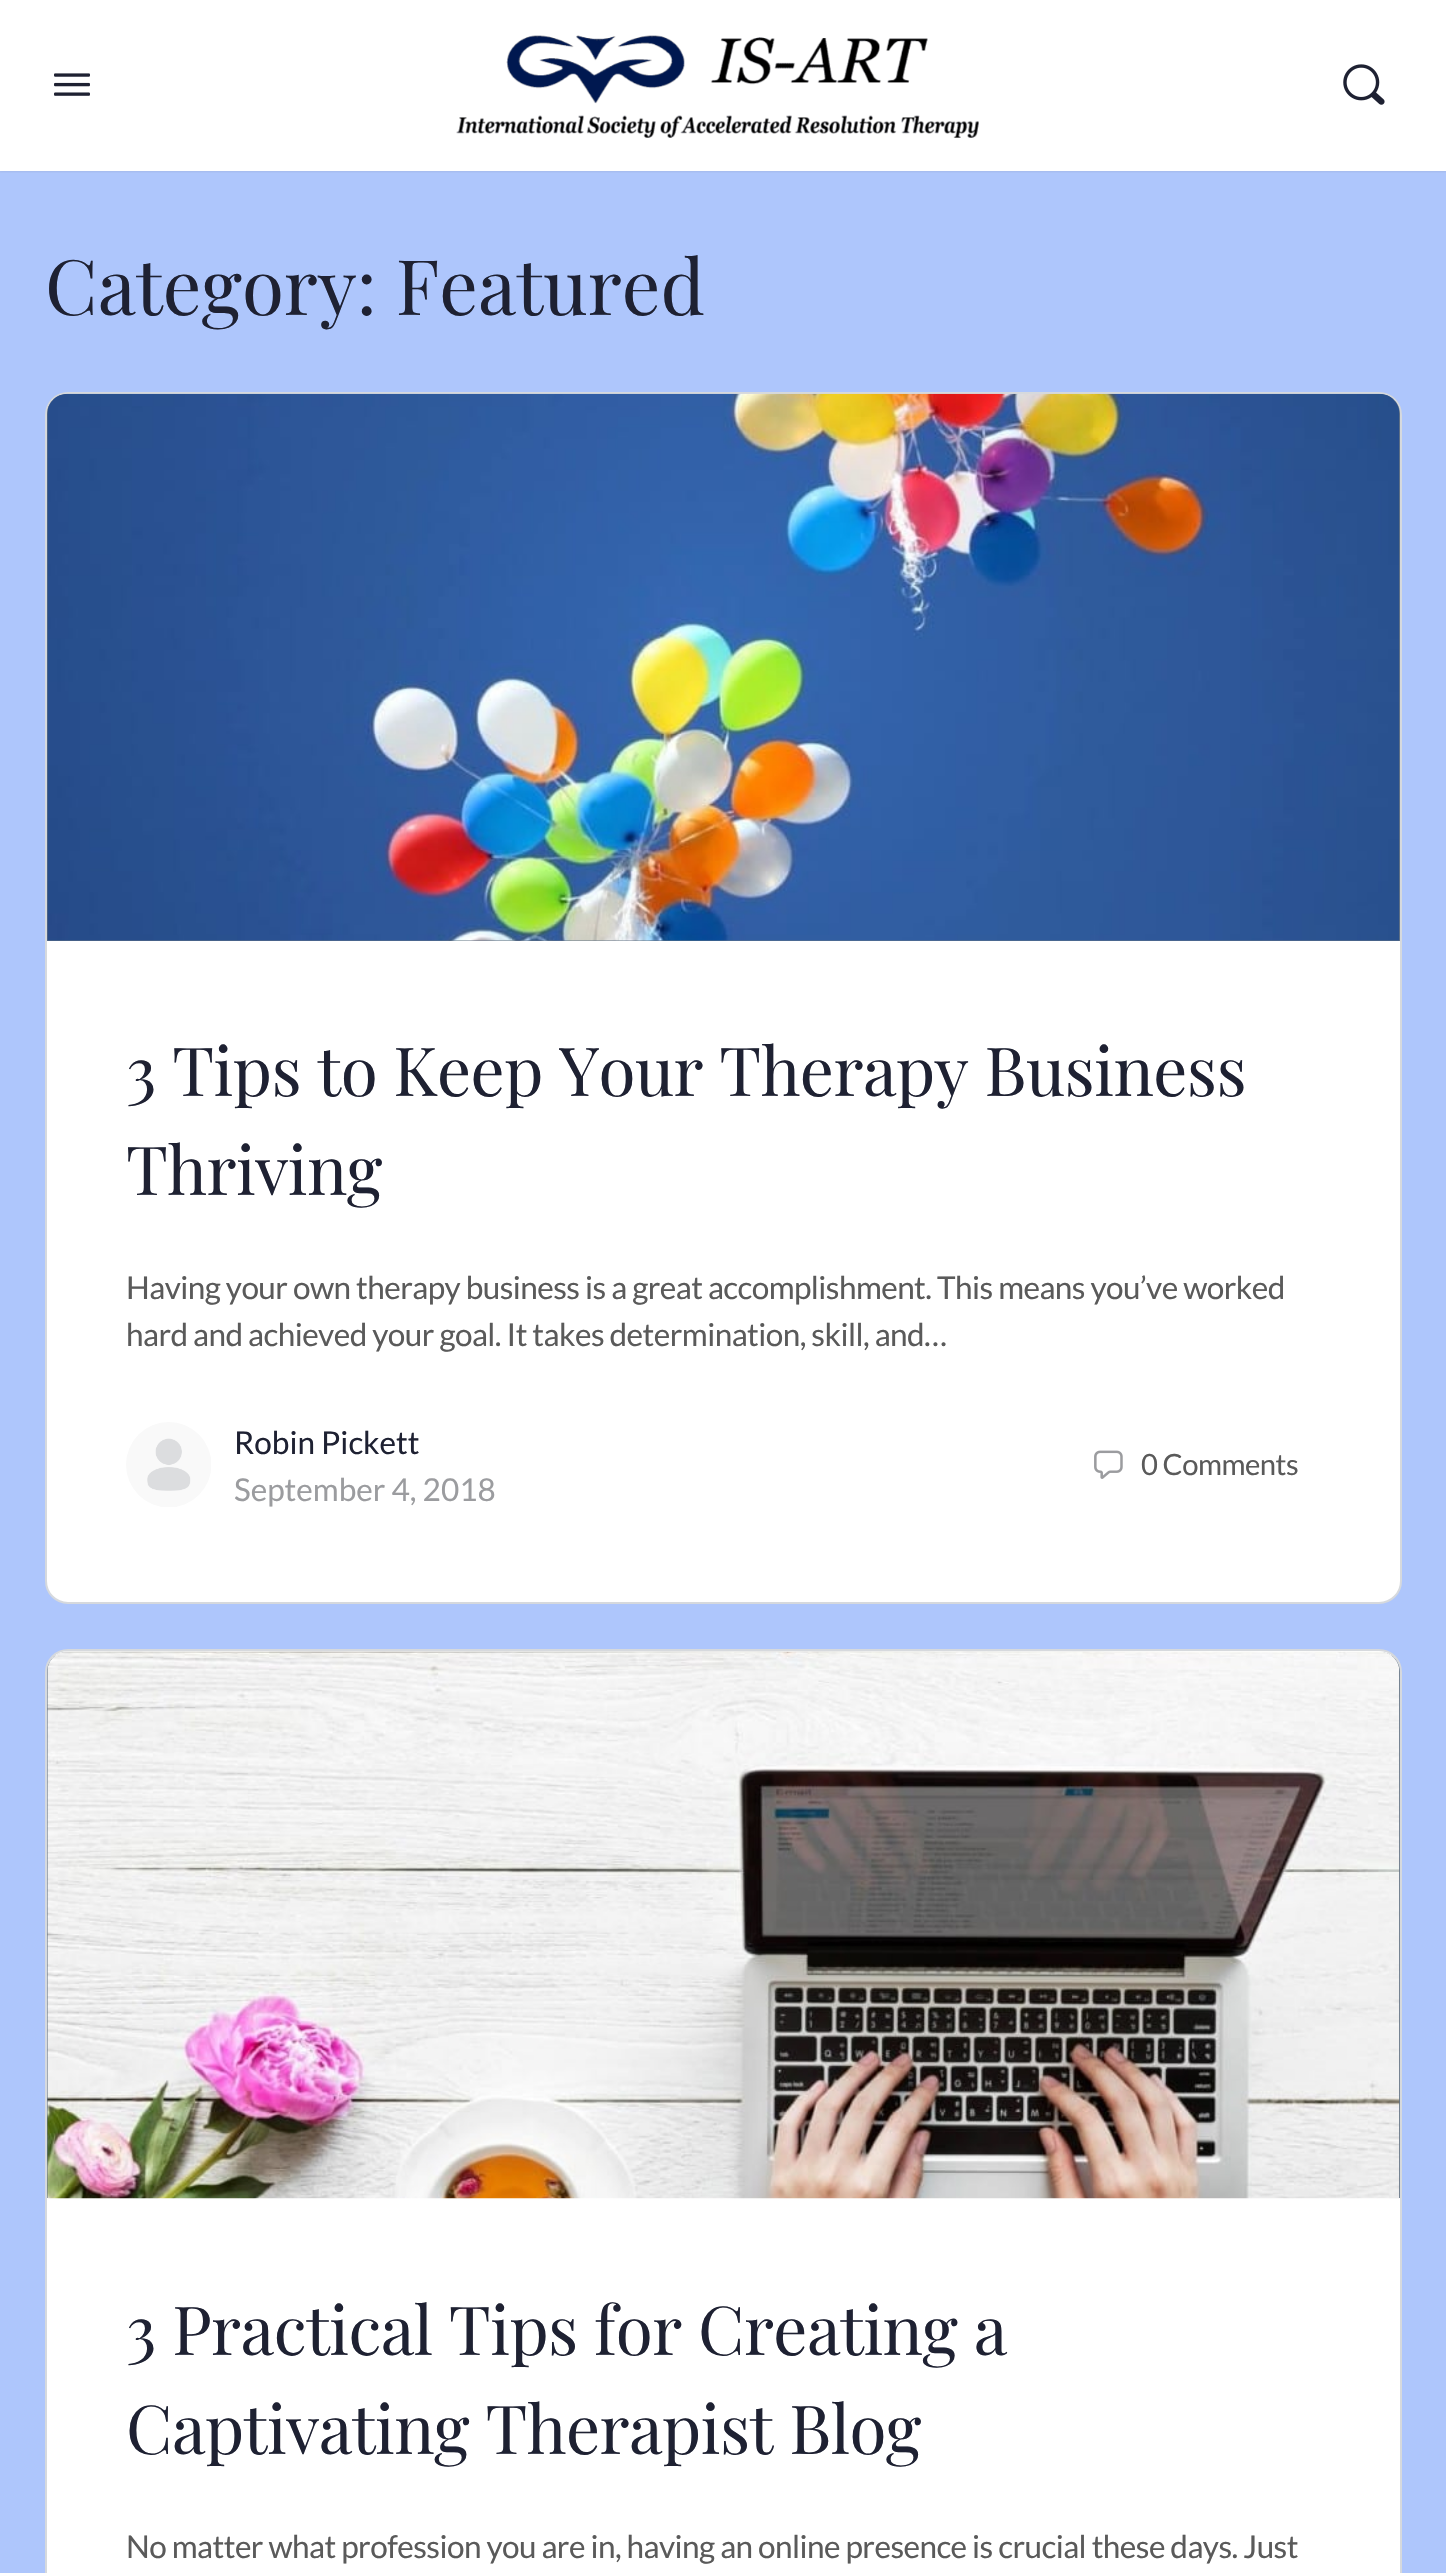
#include "include/core/SkBlurTypes.h"
#include "include/core/SkCanvas.h"
#include "include/core/SkData.h"
#include "include/core/SkFont.h"
#include "include/core/SkFontMgr.h"
#include "include/core/SkImage.h"
#include "include/core/SkMaskFilter.h"
#include "include/core/SkPaint.h"
#include "include/core/SkPathBuilder.h"
#include "include/core/SkTextBlob.h"
#include "include/effects/SkDashPathEffect.h"
#include "include/effects/SkGradientShader.h"
#include "include/utils/SkParsePath.h"

extern sk_sp<SkFontMgr> fontMgr;

static SkFont font(const char* family, int weight, float size, bool italic = false) {
    SkFontStyle style(weight, SkFontStyle::kNormal_Width,
        italic ? SkFontStyle::kItalic_Slant : SkFontStyle::kUpright_Slant);
    SkFont result(fontMgr->matchFamilyStyle(family, style), size);
    result.setSubpixel(true);
    return result;
}

static void drawLabel(SkCanvas* canvas, const char* s, float x, float y, const SkFont& font, SkColor color) {
    SkPaint ink(SkColor4f::FromColor(color));
    ink.setAntiAlias(true);
    canvas->drawString(s, x, y, font, ink);
}

static void drawTracked(SkCanvas* canvas, const char* s, float x, float y, const SkFont& font, const SkPaint& ink, float letter, float word) {
    std::vector<SkGlyphID> glyphs(font.countText(s, strlen(s), SkTextEncoding::kUTF8));
    std::vector<float> xs(glyphs.size());
    font.textToGlyphs(s, strlen(s), SkTextEncoding::kUTF8, glyphs);
    font.getXPos(glyphs, xs, x);
    float extra = 0;
    for (size_t i = 0; i < glyphs.size(); i++) {
        xs[i] += extra;
        extra += letter + word * (glyphs[i] == font.unicharToGlyph(' '));
    }
    canvas->drawTextBlob(SkTextBlob::MakeFromPosHGlyphs(glyphs, xs, y, font), 0, 0, ink);
}

static void fillRect(SkCanvas* canvas, float x, float y, float w, float h, SkColor color) {
    SkPaint ink(SkColor4f::FromColor(color));
    ink.setAntiAlias(true);
    canvas->drawRect(SkRect::MakeXYWH(x, y, w, h), ink);
}

static void drawPhoto(SkCanvas* canvas, const char* path, float x, float y, float w, float h) {
    auto image = SkImages::DeferredFromEncodedData(SkData::MakeFromFileName(path));
    canvas->drawImageRect(image, SkRect::MakeXYWH(x, y, w, h), SkSamplingOptions());
}

static SkPath parsePath(const char* data, bool evenOdd = false) {
    SkPath result = *SkParsePath::FromSVGString(data);
    if (evenOdd) result.setFillType(SkPathFillType::kEvenOdd);
    return result;
}

void draw(SkCanvas* canvas) {
    SkPaint paint;
    paint.setAntiAlias(true);
    canvas->clear(0xFFAEC6FC);
    paint.setColor(0x2641476C);
    paint.setMaskFilter(SkMaskFilter::MakeBlur(kNormal_SkBlurStyle, 1));
    canvas->drawRect(SkRect::MakeXYWH(0, 0, 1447, 171), paint);
    paint.setMaskFilter(nullptr);
    paint.setColor(0x0D8B8D9D);
    canvas->drawPath(parsePath("M0 171V173H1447V2V171Z"), paint);
    fillRect(canvas, 0, 0, 1446, 171, 0xFFFFFFFF);
    drawPhoto(canvas, "assets/img1.png", 54, 73, 36, 23);
    drawPhoto(canvas, "assets/img2.png", 456, 35, 523, 103);
    drawPhoto(canvas, "assets/img3.png", 1343, 64, 42, 41);
    SkFont font1 = font("Playfair Display", 400, 76.5f);
    drawLabel(canvas, "Category: Featured", 45, 315, font1, 0xFF1E2132);
    paint.setColor(0xFFFFFFFF);
    canvas->drawRoundRect(SkRect::MakeXYWH(46, 393, 1355, 1210), 22, 22, paint);
    paint.setStroke(true);
    paint.setStrokeWidth(2);
    paint.setColor(0xFFD6D9DD);
    canvas->drawRoundRect(SkRect::MakeXYWH(46, 393, 1355, 1210), 22, 22, paint);
    paint.setStroke(false);
    paint.setColor(0xFF647385);
    canvas->drawPath(parsePath("M67 394H1380C1391 394 1400 403 1400 414V941H47V414C47 403 56 394 67 394Z"), paint);
    drawPhoto(canvas, "assets/img4.png", 47, 393, 1353, 548);
    SkFont font2 = font("Playfair Display", 400, 67.5f);
    paint.setColor(0xFF1E2132);
    drawTracked(canvas, "3 Tips to Keep Your Therapy Business", 126, 1096, font2, paint, -0.55f, 0);
    drawTracked(canvas, "Thriving", 126, 1195, font2, paint, -0.55f, 0);
    SkFont font3 = font("Lato", 400, 31.5f);
    paint.setColor(0xFF5A5A5A);
    drawTracked(canvas, "Having your own therapy business is a great accomplishment. This means you’ve worked", 126, 1299, font3, paint, -0.55f, 0);
    drawTracked(canvas, "hard and achieved your goal. It takes determination, skill, and…", 126, 1346, font3, paint, -0.55f, 0);
    drawPhoto(canvas, "assets/img5.png", 126, 1422, 85, 85);
    drawLabel(canvas, "Robin Pickett", 234, 1454, font3, 0xFF1E2132);
    drawLabel(canvas, "September 4, 2018", 234, 1501, font3, 0xFF9B9C9F);
    drawPhoto(canvas, "assets/img6.png", 1094, 1450, 29, 29);
    SkFont font4 = font("Lato", 400, 29.25f);
    drawTracked(canvas, "0 Comments", 1141, 1475, font4, paint, -0.5f, 0);
    paint.setColor(0xFFFFFFFF);
    canvas->drawRoundRect(SkRect::MakeXYWH(46, 1650, 1355, 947), 22, 22, paint);
    paint.setStroke(true);
    paint.setColor(0xFFD6D9DD);
    canvas->drawRoundRect(SkRect::MakeXYWH(46, 1650, 1355, 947), 22, 22, paint);
    paint.setStroke(false);
    paint.setColor(0xFF647385);
    canvas->drawPath(parsePath("M67 1652H1380C1391 1652 1400 1661 1400 1672V2198H47V1672C47 1661 56 1652 67 1652Z"), paint);
    drawPhoto(canvas, "assets/img7.png", 47, 1651, 1353, 548);
    paint.setColor(0xFF1E2132);
    drawTracked(canvas, "3 Practical Tips for Creating a", 126, 2355, font2, paint, -0.55f, 0);
    drawTracked(canvas, "Captivating Therapist Blog", 126, 2454, font2, paint, -0.55f, 0);
    paint.setColor(0xFF5A5A5A);
    drawTracked(canvas, "No matter what profession you are in, having an online presence is crucial these days. Just", 126, 2558, font3, paint, -0.55f, 0);
}
